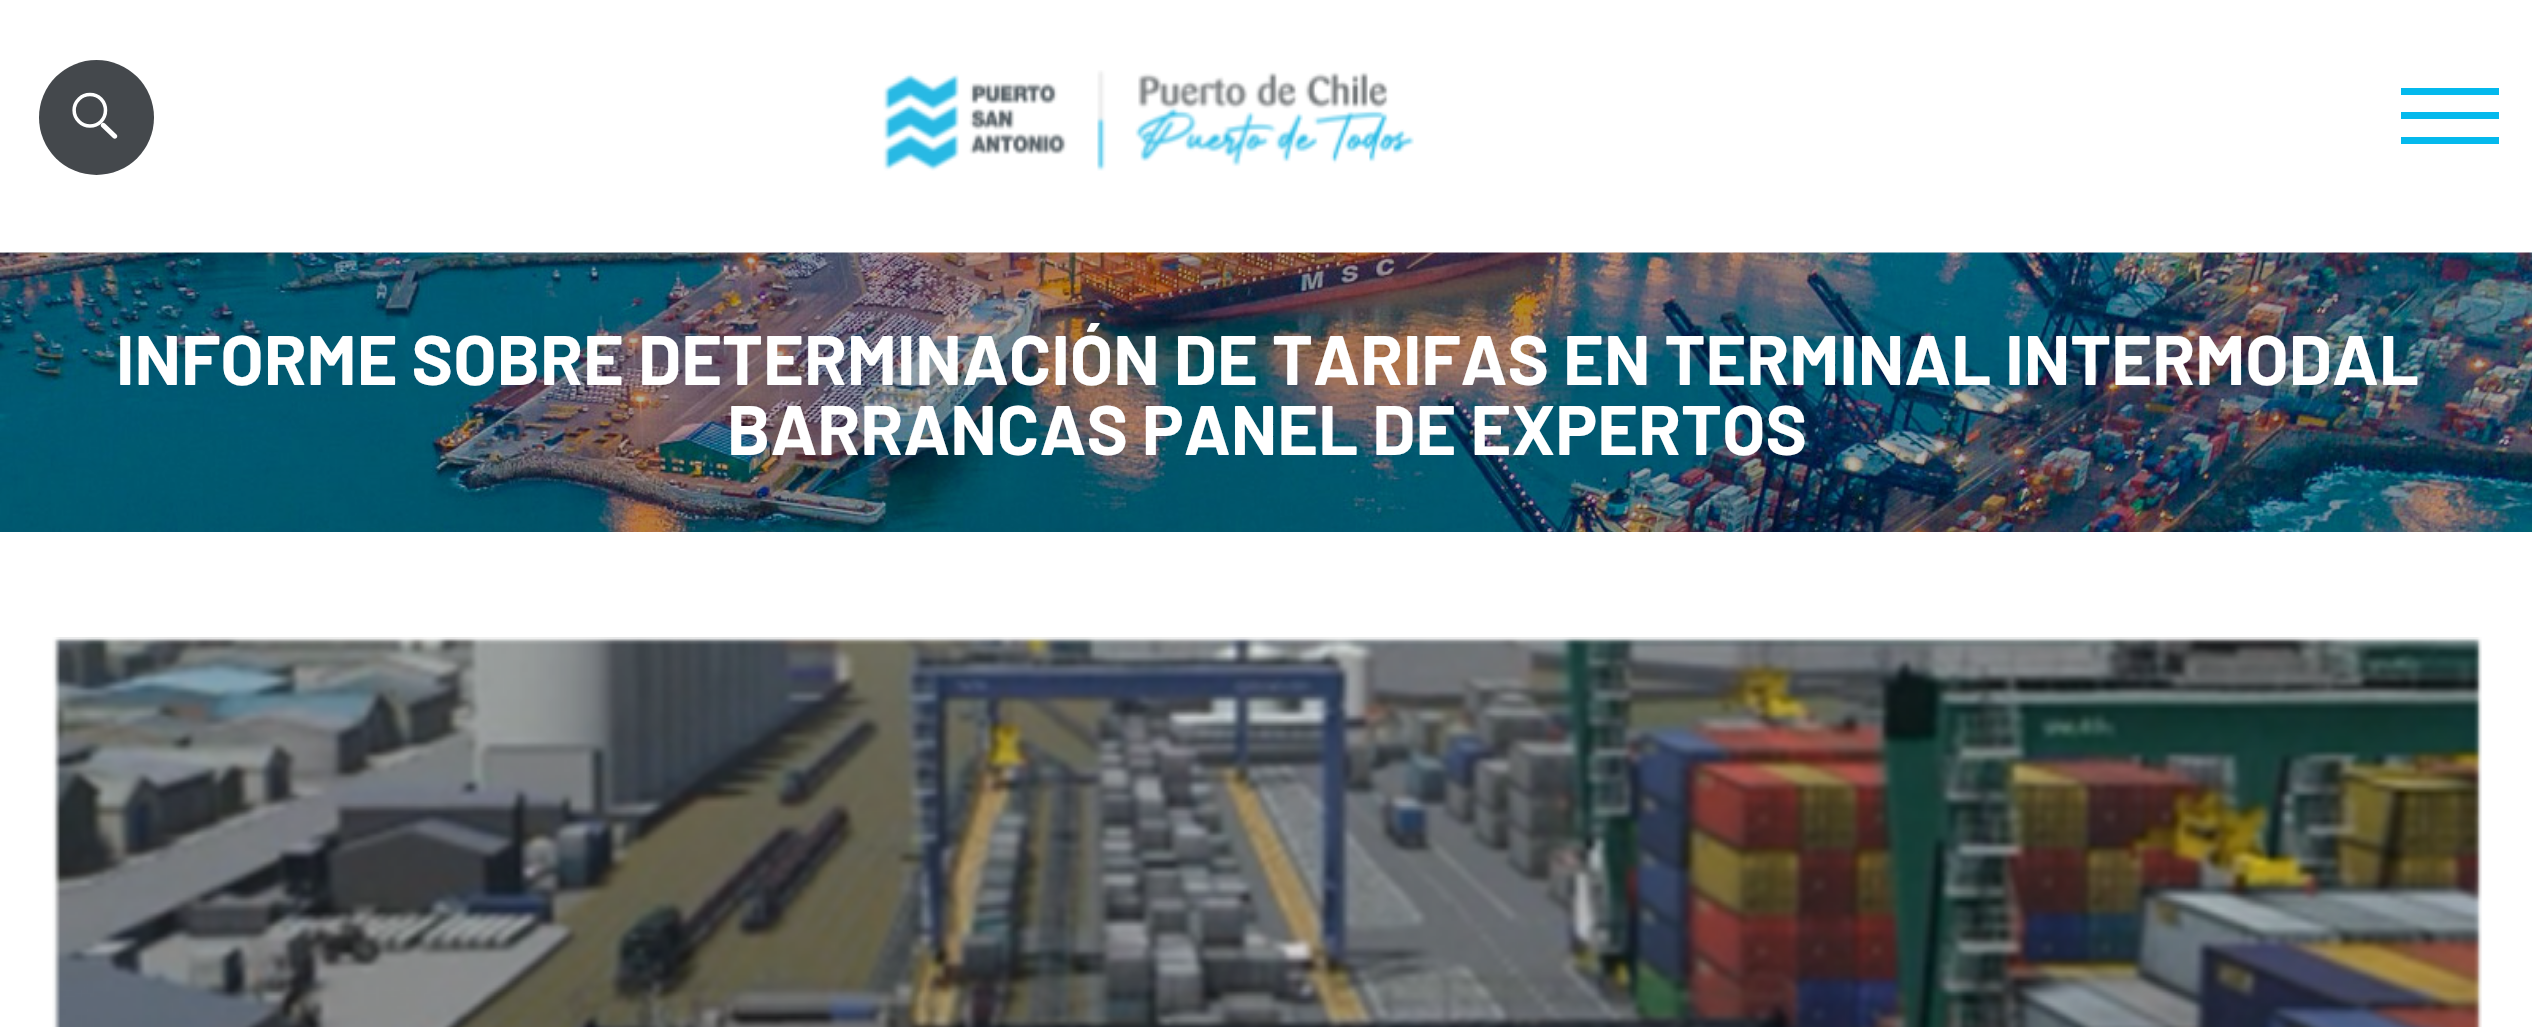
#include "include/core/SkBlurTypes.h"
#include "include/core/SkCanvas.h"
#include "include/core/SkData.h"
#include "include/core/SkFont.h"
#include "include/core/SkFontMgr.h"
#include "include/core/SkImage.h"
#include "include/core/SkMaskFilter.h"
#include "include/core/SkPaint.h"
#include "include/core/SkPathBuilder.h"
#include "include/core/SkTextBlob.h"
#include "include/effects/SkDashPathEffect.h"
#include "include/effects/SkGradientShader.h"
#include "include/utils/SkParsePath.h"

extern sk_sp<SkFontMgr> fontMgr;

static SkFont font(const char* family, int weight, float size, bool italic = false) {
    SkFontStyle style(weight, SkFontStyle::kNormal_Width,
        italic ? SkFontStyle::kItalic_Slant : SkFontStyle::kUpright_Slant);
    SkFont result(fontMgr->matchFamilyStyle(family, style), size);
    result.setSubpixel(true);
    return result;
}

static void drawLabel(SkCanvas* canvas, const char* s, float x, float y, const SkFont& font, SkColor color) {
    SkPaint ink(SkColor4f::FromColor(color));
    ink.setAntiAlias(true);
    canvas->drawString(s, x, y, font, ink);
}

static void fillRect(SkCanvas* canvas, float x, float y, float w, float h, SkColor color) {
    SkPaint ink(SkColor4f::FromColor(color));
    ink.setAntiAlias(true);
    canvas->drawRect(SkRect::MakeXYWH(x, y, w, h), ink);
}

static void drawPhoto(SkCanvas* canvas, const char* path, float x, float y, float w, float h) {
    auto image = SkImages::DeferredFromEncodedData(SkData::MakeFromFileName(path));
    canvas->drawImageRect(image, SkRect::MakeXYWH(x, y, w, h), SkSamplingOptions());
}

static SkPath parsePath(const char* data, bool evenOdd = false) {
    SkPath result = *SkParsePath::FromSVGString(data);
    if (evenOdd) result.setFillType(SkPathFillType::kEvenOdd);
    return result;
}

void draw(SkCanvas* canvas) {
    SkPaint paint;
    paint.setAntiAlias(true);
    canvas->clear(0xFFFFFFFF);
    drawPhoto(canvas, "assets/img2.png", 0, 252, 2532, 280);
    fillRect(canvas, 0, 252, 2532, 1, 0x80FFFFFF);
    paint.setColor(0xFF44484C);
    canvas->drawCircle(96.5f, 117.5f, 57.5f, paint);
    paint.setColor(0xFFFFFFFF);
    canvas->drawPath(parsePath("M101.5 123.5C102.5 122.5 104 122.5 105 123.5L116.5 134.5C117.5 135.5 117.5 137 116.5 138C115.5 139 114 139 113 138L101.5 127C100.5 126 100.5 124.5 101.5 123.5Z"), paint);
    paint.setStroke(true);
    paint.setStrokeWidth(3.5f);
    canvas->drawPath(parsePath("M79 99C85 93 95 93 101 99C107 105.5 107 115 101 121.5C95 127.5 85 127.5 79 121.5C72.5 115 72.5 105.5 79 99Z"), paint);
    drawPhoto(canvas, "assets/img1.png", 883, 70, 531, 101);
    fillRect(canvas, 2401, 112, 98, 7, 0xFF04B9ED);
    fillRect(canvas, 2401, 88, 98, 7, 0xFF04B9ED);
    fillRect(canvas, 2401, 137, 98, 7, 0xFF04B9ED);
    SkFont font1 = font("Barlow", 700, 70);
    drawLabel(canvas, "INFORME SOBRE DETERMINACIÓN DE TARIFAS EN TERMINAL INTERMODAL", 116, 385, font1, 0xFFFFFFFF);
    drawLabel(canvas, "BARRANCAS PANEL DE EXPERTOS", 727, 455, font1, 0xFFFFFFFF);
    drawPhoto(canvas, "assets/img3.png", 52, 637, 2430, 390);
}
